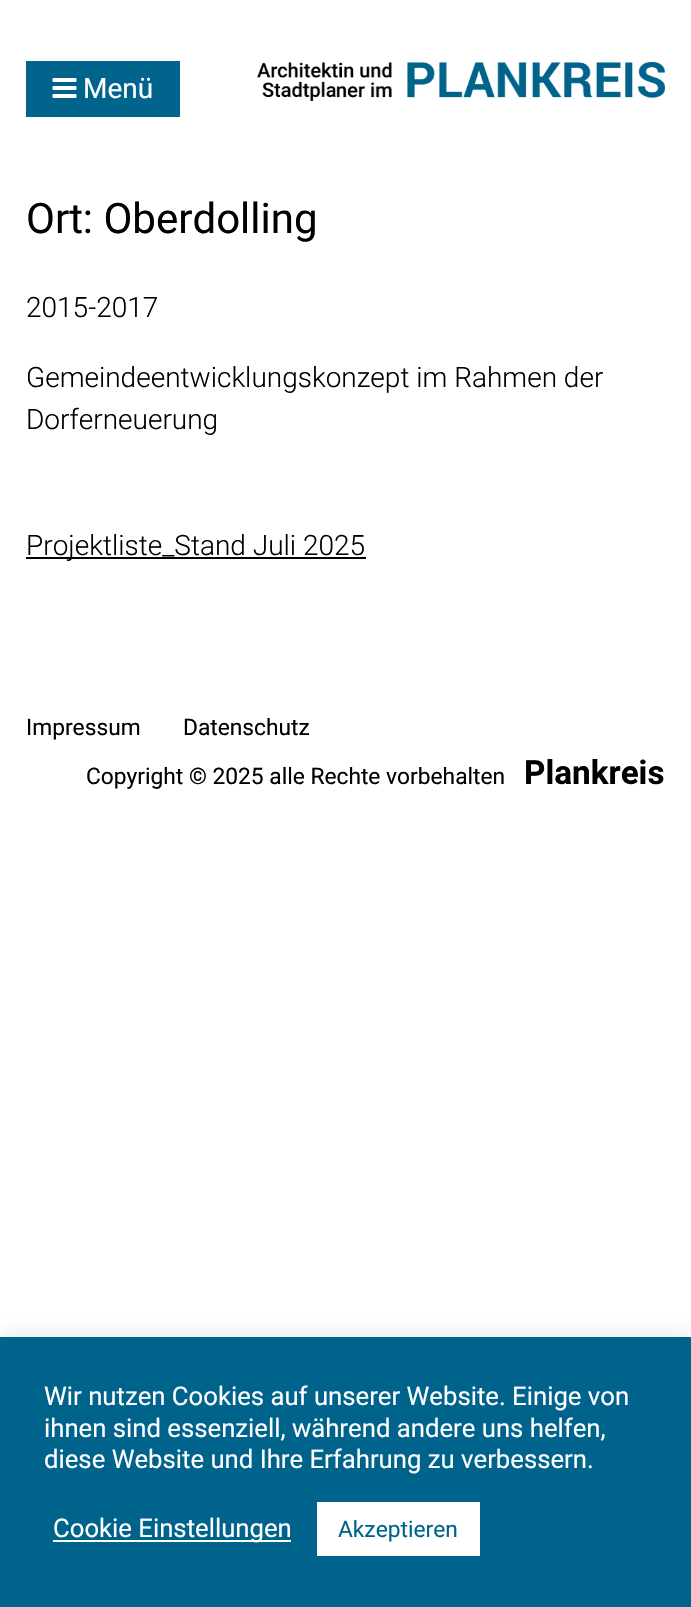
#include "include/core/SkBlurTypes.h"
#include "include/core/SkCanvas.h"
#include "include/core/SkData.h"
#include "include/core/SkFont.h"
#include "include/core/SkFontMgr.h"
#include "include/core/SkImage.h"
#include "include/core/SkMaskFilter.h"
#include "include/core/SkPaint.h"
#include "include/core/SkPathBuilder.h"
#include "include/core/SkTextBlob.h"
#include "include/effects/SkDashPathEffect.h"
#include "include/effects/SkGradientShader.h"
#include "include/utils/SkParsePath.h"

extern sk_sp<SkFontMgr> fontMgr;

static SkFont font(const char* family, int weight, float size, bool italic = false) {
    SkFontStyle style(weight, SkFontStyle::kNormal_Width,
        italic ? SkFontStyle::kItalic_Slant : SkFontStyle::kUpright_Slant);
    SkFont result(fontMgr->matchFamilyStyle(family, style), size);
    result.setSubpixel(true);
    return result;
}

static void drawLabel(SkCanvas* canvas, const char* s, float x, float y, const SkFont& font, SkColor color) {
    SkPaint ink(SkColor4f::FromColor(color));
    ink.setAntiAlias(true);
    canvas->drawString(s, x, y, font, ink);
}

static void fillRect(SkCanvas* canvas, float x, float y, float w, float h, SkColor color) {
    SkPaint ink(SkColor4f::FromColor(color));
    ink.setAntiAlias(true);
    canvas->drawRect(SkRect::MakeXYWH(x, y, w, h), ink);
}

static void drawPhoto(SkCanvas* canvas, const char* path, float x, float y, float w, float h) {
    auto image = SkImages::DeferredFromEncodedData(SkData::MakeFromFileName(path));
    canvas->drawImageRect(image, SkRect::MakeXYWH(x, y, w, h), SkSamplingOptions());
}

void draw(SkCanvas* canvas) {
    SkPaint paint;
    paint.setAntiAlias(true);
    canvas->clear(0xFFFFFFFF);
    fillRect(canvas, 26, 61, 154, 56, 0xFF00648C);
    drawPhoto(canvas, "assets/img1.png", 52, 78, 25, 20);
    SkFont font1 = font("Roboto", 400, 28);
    drawLabel(canvas, "Menü", 83, 98, font1, 0xFFFFFFFF);
    drawPhoto(canvas, "assets/img2.png", 257, 62, 408, 39);
    SkFont font2 = font("Roboto", 400, 42);
    drawLabel(canvas, "Ort: Oberdolling", 26, 233, font2, 0xFF000000);
    SkFont font3 = font("Roboto", 300, 28);
    drawLabel(canvas, "2015-2017", 26, 317, font3, 0xFF000000);
    drawLabel(canvas, "Gemeindeentwicklungskonzept im Rahmen der", 26, 387, font3, 0xFF000000);
    drawLabel(canvas, "Dorferneuerung", 26, 429, font3, 0xFF000000);
    fillRect(canvas, 26, 557, 340, 2, 0xFF000000);
    drawLabel(canvas, "Projektliste_Stand Juli 2025", 26, 555, font3, 0xFF000000);
    SkFont font4 = font("Roboto", 400, 22.75f);
    drawLabel(canvas, "Impressum", 26, 735, font4, 0xFF000000);
    drawLabel(canvas, "Datenschutz", 183, 735, font4, 0xFF000000);
    drawLabel(canvas, "Copyright © 2025 alle Rechte vorbehalten", 86, 784, font4, 0xFF000000);
    SkFont font5 = font("Roboto", 700, 33.25f);
    drawLabel(canvas, "Plankreis", 524, 784, font5, 0xFF000000);
    paint.setColor(0x4DACABAB);
    paint.setMaskFilter(SkMaskFilter::MakeBlur(kNormal_SkBlurStyle, 9));
    canvas->drawRect(SkRect::MakeXYWH(0, 1335, 691, 272), paint);
    paint.setMaskFilter(nullptr);
    fillRect(canvas, 0, 1337, 691, 270, 0xFF00638B);
    SkFont font6 = font("Roboto", 400, 25.7f);
    drawLabel(canvas, "Wir nutzen Cookies auf unserer Website. Einige von", 44, 1405, font6, 0xFFFFFFFF);
    drawLabel(canvas, "ihnen sind essenziell, während andere uns helfen,", 44, 1437, font6, 0xFFFFFFFF);
    drawLabel(canvas, "diese Website und Ihre Erfahrung zu verbessern.", 44, 1468, font6, 0xFFFFFFFF);
    fillRect(canvas, 53, 1540, 238, 2, 0xFFFFFFFF);
    drawLabel(canvas, "Cookie Einstellungen", 53, 1537, font6, 0xFFFFFFFF);
    fillRect(canvas, 317, 1502, 163, 54, 0xFFFFFFFF);
    drawLabel(canvas, "Akzeptieren", 338, 1537, font4, 0xFF00638B);
}
